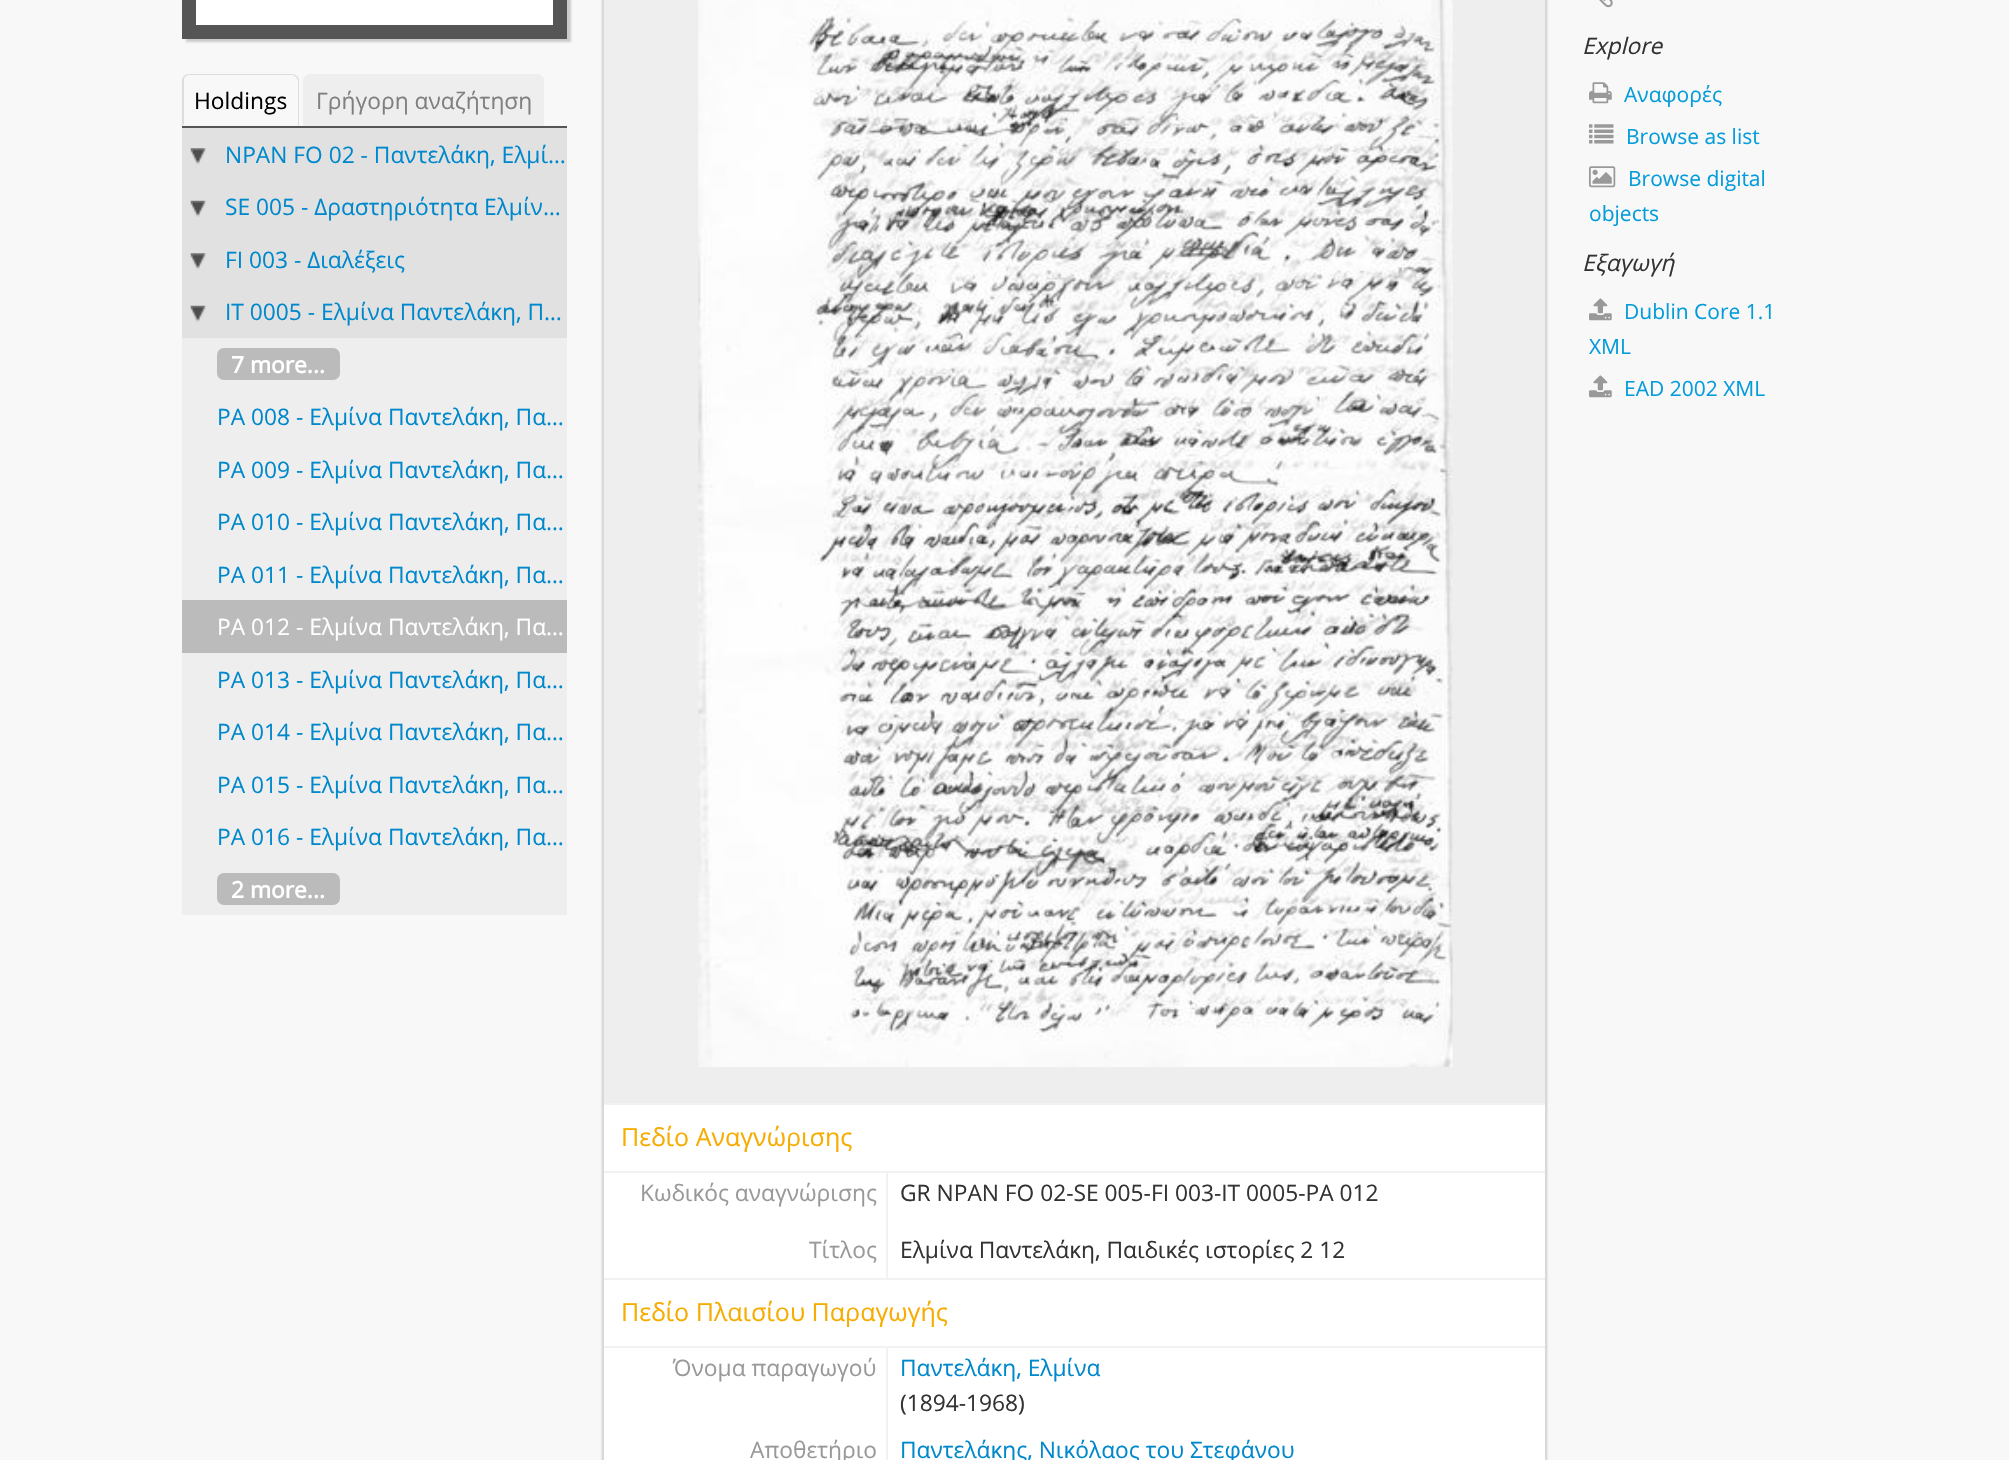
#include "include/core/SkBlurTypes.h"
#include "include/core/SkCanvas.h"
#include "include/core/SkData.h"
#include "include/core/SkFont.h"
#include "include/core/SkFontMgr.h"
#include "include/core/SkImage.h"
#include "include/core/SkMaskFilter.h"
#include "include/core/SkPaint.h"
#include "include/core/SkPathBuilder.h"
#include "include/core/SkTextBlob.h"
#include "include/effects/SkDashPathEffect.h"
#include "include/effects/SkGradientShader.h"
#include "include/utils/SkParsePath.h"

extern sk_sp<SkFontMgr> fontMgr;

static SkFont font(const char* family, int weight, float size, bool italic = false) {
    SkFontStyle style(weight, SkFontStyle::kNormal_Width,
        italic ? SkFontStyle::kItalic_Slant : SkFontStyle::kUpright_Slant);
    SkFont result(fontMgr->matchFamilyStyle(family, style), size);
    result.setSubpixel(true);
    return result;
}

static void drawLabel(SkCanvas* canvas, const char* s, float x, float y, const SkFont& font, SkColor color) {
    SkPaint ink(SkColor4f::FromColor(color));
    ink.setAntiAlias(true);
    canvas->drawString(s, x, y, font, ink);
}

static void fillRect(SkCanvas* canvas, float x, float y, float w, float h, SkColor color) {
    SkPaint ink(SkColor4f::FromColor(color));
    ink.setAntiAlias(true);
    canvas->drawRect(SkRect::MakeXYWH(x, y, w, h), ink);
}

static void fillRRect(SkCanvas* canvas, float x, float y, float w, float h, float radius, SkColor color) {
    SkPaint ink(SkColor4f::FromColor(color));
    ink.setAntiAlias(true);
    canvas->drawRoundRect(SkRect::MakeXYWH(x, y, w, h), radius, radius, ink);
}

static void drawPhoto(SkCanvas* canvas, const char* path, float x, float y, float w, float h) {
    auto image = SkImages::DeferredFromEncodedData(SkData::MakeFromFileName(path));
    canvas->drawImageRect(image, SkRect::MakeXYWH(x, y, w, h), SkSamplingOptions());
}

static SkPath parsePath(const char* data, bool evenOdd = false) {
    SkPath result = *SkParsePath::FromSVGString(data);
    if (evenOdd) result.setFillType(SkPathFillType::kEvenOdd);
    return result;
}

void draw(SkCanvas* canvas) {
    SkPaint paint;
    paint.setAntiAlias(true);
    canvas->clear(0xFFF8F8F8);
    paint.setColor(0x33191919);
    paint.setMaskFilter(SkMaskFilter::MakeBlur(kNormal_SkBlurStyle, 1));
    canvas->drawRect(SkRect::MakeXYWH(186, -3, 385, 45), paint);
    paint.setMaskFilter(nullptr);
    paint.setColor(0xFFFFFFFF);
    canvas->drawRect(SkRect::MakeXYWH(189, -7, 371, 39), paint);
    paint.setStroke(true);
    paint.setStrokeWidth(14);
    paint.setColor(0xFF555555);
    canvas->drawRect(SkRect::MakeXYWH(189, -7, 371, 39), paint);
    fillRect(canvas, 182, 126, 385, 2, 0xFF555555);
    paint.setStroke(false);
    paint.setColor(0xFFDDDDDD);
    canvas->drawPath(parsePath("M189 74C187 74 185 75 184 76L185 77L188 75H293L296 77L297 76C296 75 294 74 292 74Z"), paint);
    canvas->drawPath(parsePath("M299 126V80C299 78 298 77 297 76L296 77L298 80V124H297Z"), paint);
    canvas->drawPath(parsePath("M182 126L184 124V80C184 79 184 78 185 77L184 76C183 77 182 78 182 80Z"), paint);
    SkFont font1 = font("Open Sans", 400, 22.75f);
    drawLabel(canvas, "Holdings", 194, 109, font1, 0xFF000000);
    paint.setColor(0xFFEEEEEE);
    canvas->drawPath(parsePath("M310 74H537C541 74 544 77 544 81V126H303V81C303 77 306 74 310 74Z"), paint);
    drawLabel(canvas, "Γρήγορη αναζήτηση", 316, 109, font1, 0xFF808080);
    fillRect(canvas, 182, 338, 385, 577, 0xFFEEEEEE);
    fillRect(canvas, 182, 128, 385, 210, 0xFFE1E1E1);
    drawPhoto(canvas, "assets/img1.png", 190, 148, 17, 17);
    drawLabel(canvas, "NPAN FO 02 - Παντελάκη, Ελμί…", 225, 163, font1, 0xFF0088CC);
    drawPhoto(canvas, "assets/img2.png", 190, 200, 17, 17);
    drawLabel(canvas, "SE 005 - Δραστηριότητα Ελμίν…", 225, 215, font1, 0xFF0088CC);
    drawPhoto(canvas, "assets/img1.png", 190, 253, 17, 17);
    drawLabel(canvas, "FI 003 - Διαλέξεις", 225, 268, font1, 0xFF0088CC);
    drawPhoto(canvas, "assets/img2.png", 190, 305, 17, 17);
    drawLabel(canvas, "IT 0005 - Ελμίνα Παντελάκη, Π…", 225, 320, font1, 0xFF0088CC);
    fillRRect(canvas, 217, 348, 123, 32, 7, 0xFFBBBBBB);
    SkFont font2 = font("Open Sans", 700, 22.75f);
    drawLabel(canvas, "7 more...", 231, 373, font2, 0xFFFFFFFF);
    drawLabel(canvas, "PA 008 - Ελμίνα Παντελάκη, Πα…", 217, 425, font1, 0xFF0088CC);
    drawLabel(canvas, "PA 009 - Ελμίνα Παντελάκη, Πα…", 217, 478, font1, 0xFF0088CC);
    drawLabel(canvas, "PA 010 - Ελμίνα Παντελάκη, Πα…", 217, 530, font1, 0xFF0088CC);
    drawLabel(canvas, "PA 011 - Ελμίνα Παντελάκη, Πα…", 217, 583, font1, 0xFF0088CC);
    fillRect(canvas, 182, 600, 385, 53, 0xFFBBBBBB);
    drawLabel(canvas, "PA 012 - Ελμίνα Παντελάκη, Πα…", 217, 635, font1, 0xFFFFFFFF);
    drawLabel(canvas, "PA 013 - Ελμίνα Παντελάκη, Πα…", 217, 688, font1, 0xFF0088CC);
    drawLabel(canvas, "PA 014 - Ελμίνα Παντελάκη, Πα…", 217, 740, font1, 0xFF0088CC);
    drawLabel(canvas, "PA 015 - Ελμίνα Παντελάκη, Πα…", 217, 793, font1, 0xFF0088CC);
    drawLabel(canvas, "PA 016 - Ελμίνα Παντελάκη, Πα…", 217, 845, font1, 0xFF0088CC);
    fillRRect(canvas, 217, 873, 123, 32, 7, 0xFFBBBBBB);
    drawLabel(canvas, "2 more...", 231, 898, font2, 0xFFFFFFFF);
    drawPhoto(canvas, "assets/img3.png", 1599, 0, 14, 8);
    SkFont font3 = font("Open Sans", 400, 22.75f, true);
    drawLabel(canvas, "Explore", 1582, 54, font3, 0xFF333333);
    drawPhoto(canvas, "assets/img4.png", 1589, 82, 23, 22);
    SkFont font4 = font("Open Sans", 400, 21);
    drawLabel(canvas, "Αναφορές", 1624, 102, font4, 0xFF049CDB);
    drawPhoto(canvas, "assets/img5.png", 1589, 124, 25, 20);
    drawLabel(canvas, "Browse as list", 1626, 144, font4, 0xFF049CDB);
    drawPhoto(canvas, "assets/img6.png", 1589, 166, 27, 22);
    drawLabel(canvas, "Browse digital", 1628, 186, font4, 0xFF049CDB);
    drawLabel(canvas, "objects", 1589, 221, font4, 0xFF049CDB);
    drawLabel(canvas, "Εξαγωγή", 1582, 271, font3, 0xFF333333);
    drawPhoto(canvas, "assets/img7.png", 1589, 298, 23, 23);
    drawLabel(canvas, "Dublin Core 1.1", 1624, 319, font4, 0xFF049CDB);
    drawLabel(canvas, "XML", 1589, 354, font4, 0xFF049CDB);
    drawPhoto(canvas, "assets/img7.png", 1589, 375, 23, 23);
    drawLabel(canvas, "EAD 2002 XML", 1624, 396, font4, 0xFF049CDB);
    paint.setColor(0x33000000);
    paint.setMaskFilter(SkMaskFilter::MakeBlur(kNormal_SkBlurStyle, 1));
    canvas->drawRoundRect(SkRect::MakeXYWH(602, -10, 945, 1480), 7, 7, paint);
    paint.setMaskFilter(nullptr);
    fillRect(canvas, 604, 1105, 941, 355, 0xFFFFFFFF);
    paint.setStroke(true);
    paint.setStrokeWidth(2);
    paint.setColor(0xFFD9D9D9);
    canvas->drawRect(SkRect::MakeXYWH(603, -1, 943, 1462), paint);
    fillRect(canvas, 604, 0, 941, 1103, 0xFFEEEEEE);
    drawPhoto(canvas, "assets/img8.png", 698, 0, 755, 1067);
    fillRect(canvas, 604, 1103, 941, 2, 0xFFF2F2F2);
    fillRect(canvas, 604, 1171, 941, 2, 0xFFF2F2F2);
    SkFont font5 = font("Open Sans", 400, 25);
    drawLabel(canvas, "Πεδίο Αναγνώρισης", 621, 1146, font5, 0xFFF6AC00);
    fillRect(canvas, 886, 1173, 2, 105, 0xFFF2F2F2);
    drawLabel(canvas, "Κωδικός αναγνώρισης", 640, 1201, font1, 0xFF999999);
    drawLabel(canvas, "GR NPAN FO 02-SE 005-FI 003-IT 0005-PA 012", 900, 1201, font1, 0xFF333333);
    drawLabel(canvas, "Τίτλος", 809, 1258, font1, 0xFF999999);
    drawLabel(canvas, "Ελμίνα Παντελάκη, Παιδικές ιστορίες 2 12", 900, 1258, font1, 0xFF333333);
    fillRect(canvas, 604, 1278, 941, 2, 0xFFF2F2F2);
    fillRect(canvas, 604, 1346, 941, 2, 0xFFF2F2F2);
    drawLabel(canvas, "Πεδίο Πλαισίου Παραγωγής", 621, 1321, font5, 0xFFF6AC00);
    fillRect(canvas, 886, 1348, 2, 112, 0xFFF2F2F2);
    drawLabel(canvas, "Όνομα παραγωγού", 673, 1376, font1, 0xFF999999);
    drawLabel(canvas, "Παντελάκη, Ελμίνα", 900, 1376, font1, 0xFF0088CC);
    drawLabel(canvas, "(1894-1968)", 900, 1411, font1, 0xFF333333);
    drawLabel(canvas, "Αποθετήριο", 750, 1458, font1, 0xFF999999);
    drawLabel(canvas, "Παντελάκης, Νικόλαος του Στεφάνου", 900, 1458, font1, 0xFF0088CC);
}
